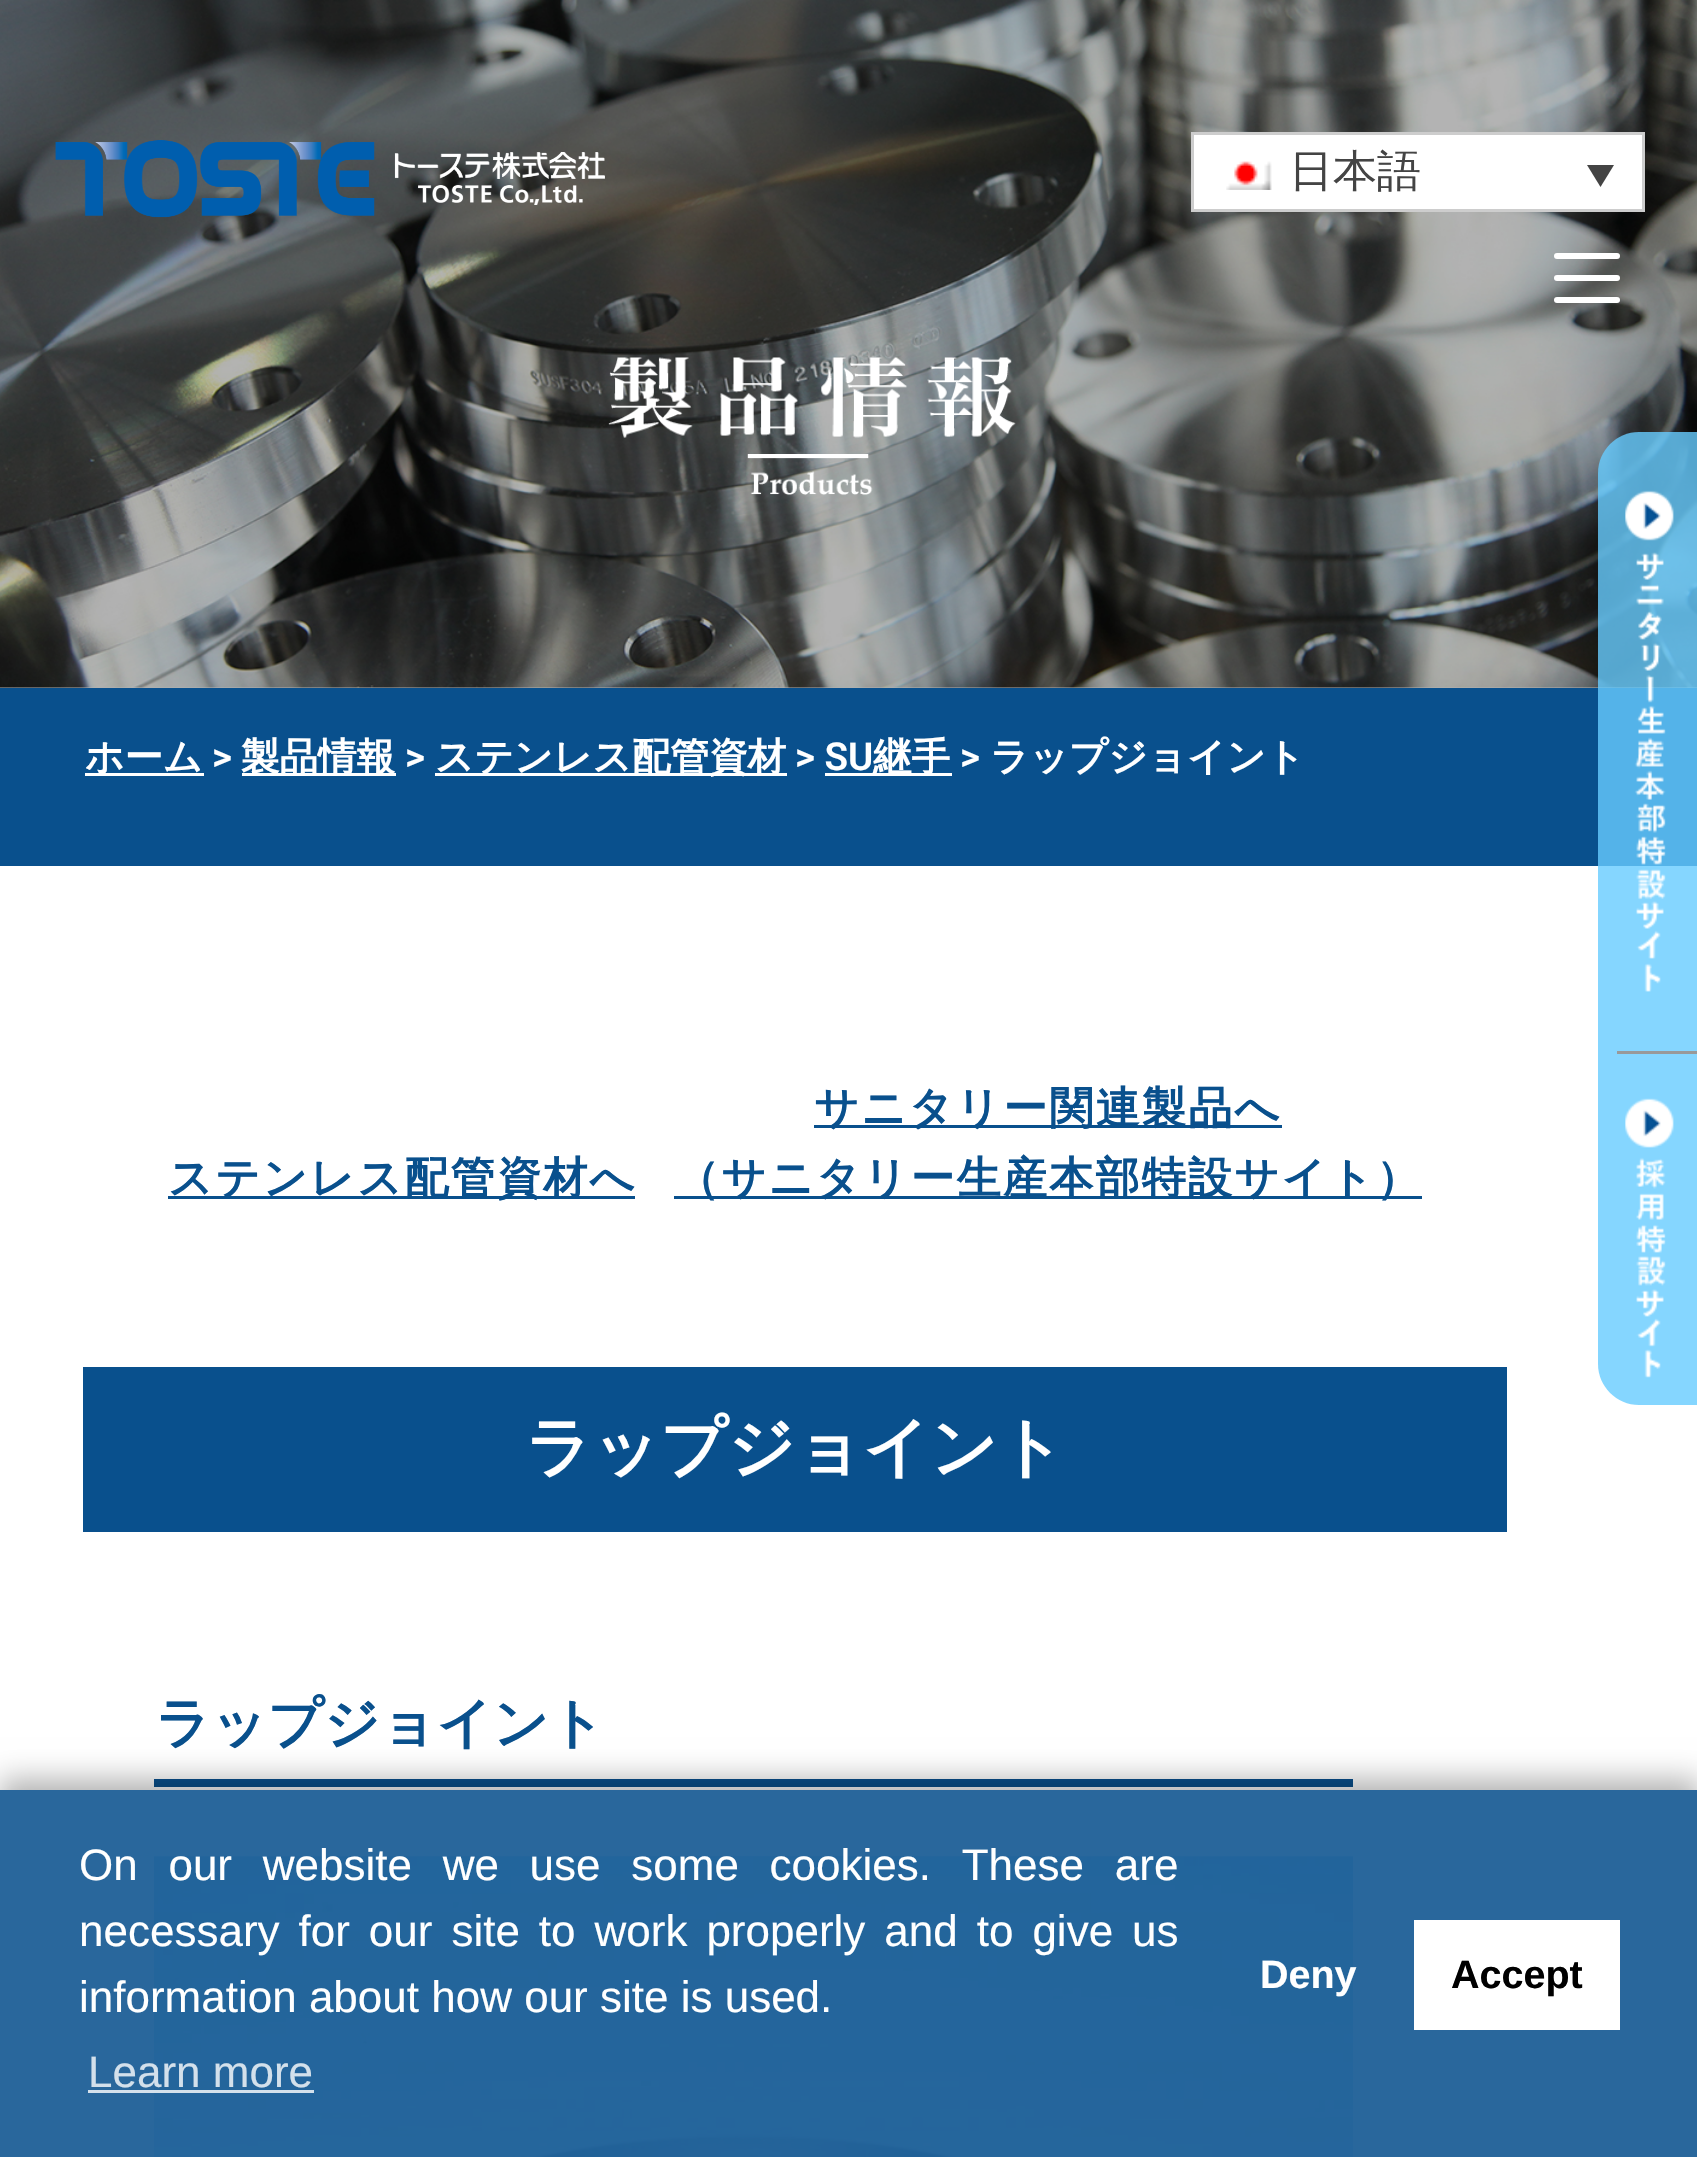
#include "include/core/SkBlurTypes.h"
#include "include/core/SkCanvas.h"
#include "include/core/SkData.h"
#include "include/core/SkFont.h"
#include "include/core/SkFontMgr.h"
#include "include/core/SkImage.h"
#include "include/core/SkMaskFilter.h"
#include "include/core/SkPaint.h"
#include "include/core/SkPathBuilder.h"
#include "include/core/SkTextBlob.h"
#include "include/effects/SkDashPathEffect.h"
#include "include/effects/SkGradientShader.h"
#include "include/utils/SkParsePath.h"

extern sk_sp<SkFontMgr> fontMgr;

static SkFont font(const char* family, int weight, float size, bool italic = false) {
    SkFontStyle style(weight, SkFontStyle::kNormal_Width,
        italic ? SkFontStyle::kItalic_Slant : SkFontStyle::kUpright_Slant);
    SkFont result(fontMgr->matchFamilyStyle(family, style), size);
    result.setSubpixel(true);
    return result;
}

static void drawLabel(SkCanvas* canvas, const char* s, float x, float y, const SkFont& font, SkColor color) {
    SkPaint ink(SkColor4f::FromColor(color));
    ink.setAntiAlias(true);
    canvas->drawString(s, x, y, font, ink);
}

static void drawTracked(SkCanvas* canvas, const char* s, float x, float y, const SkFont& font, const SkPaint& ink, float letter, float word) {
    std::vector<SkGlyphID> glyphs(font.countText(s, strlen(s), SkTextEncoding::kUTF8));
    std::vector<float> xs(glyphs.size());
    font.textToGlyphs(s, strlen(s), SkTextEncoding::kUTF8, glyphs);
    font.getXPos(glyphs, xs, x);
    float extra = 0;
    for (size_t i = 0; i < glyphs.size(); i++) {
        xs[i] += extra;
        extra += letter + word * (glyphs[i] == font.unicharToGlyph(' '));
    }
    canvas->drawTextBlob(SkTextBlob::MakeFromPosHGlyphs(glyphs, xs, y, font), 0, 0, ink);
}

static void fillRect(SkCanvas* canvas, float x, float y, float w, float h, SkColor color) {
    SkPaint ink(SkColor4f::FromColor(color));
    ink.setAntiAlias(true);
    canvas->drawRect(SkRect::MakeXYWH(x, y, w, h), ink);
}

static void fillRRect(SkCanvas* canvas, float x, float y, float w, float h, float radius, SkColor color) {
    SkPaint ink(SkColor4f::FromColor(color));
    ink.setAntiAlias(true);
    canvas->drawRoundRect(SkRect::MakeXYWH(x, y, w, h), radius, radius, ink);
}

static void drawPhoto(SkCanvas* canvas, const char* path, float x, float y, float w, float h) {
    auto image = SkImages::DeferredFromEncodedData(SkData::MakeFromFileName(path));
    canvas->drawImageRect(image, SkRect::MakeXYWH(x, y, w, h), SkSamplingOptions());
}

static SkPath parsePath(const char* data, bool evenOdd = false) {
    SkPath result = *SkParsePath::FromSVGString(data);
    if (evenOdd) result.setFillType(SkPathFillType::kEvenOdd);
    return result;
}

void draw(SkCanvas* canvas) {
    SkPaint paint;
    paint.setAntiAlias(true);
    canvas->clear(0xFFFFFFFF);
    fillRect(canvas, 0, 687, 1697, 1, 0xFFB3B3B3);
    drawPhoto(canvas, "assets/img3.png", 0, 0, 1697, 688);
    drawPhoto(canvas, "assets/img1.png", 55, 140, 550, 78);
    paint.setColor(0xFFFFFFFF);
    canvas->drawRect(SkRect::MakeXYWH(1192.5f, 133.5f, 451, 77), paint);
    paint.setStroke(true);
    paint.setStrokeWidth(3);
    paint.setColor(0xFFCDCDCD);
    canvas->drawRect(SkRect::MakeXYWH(1192.5f, 133.5f, 451, 77), paint);
    drawPhoto(canvas, "assets/img2.png", 1226, 161, 46, 29);
    SkFont font1 = font("WenQuanYi Zen Hei", 500, 44);
    drawLabel(canvas, "日本語", 1289, 186, font1, 0xFF444444);
    paint.setStroke(false);
    paint.setColor(0xFF444444);
    canvas->drawPath(parsePath("M1587 165H1614L1600.5 187Z"), paint);
    fillRRect(canvas, 1554, 253, 66, 6, 3, 0xFFFFFFFF);
    fillRRect(canvas, 1554, 275, 66, 6, 3, 0xFFFFFFFF);
    fillRRect(canvas, 1554, 297, 66, 6, 3, 0xFFFFFFFF);
    drawPhoto(canvas, "assets/img4.png", 608, 357, 408, 139);
    fillRect(canvas, 0, 688, 1697, 178, 0xFF09508D);
    fillRect(canvas, 85, 773, 119, 3, 0xFFFFFFFF);
    SkFont font2 = font("WenQuanYi Zen Hei", 700, 38.5f);
    drawLabel(canvas, "ホーム", 85, 770, font2, 0xFFFFFFFF);
    SkFont font3 = font("Roboto", 600, 38.5f);
    drawLabel(canvas, ">", 212, 770, font3, 0xFFFFFFFF);
    fillRect(canvas, 242, 773, 154, 3, 0xFFFFFFFF);
    drawLabel(canvas, "製品情報", 241, 770, font2, 0xFFFFFFFF);
    drawLabel(canvas, ">", 405, 770, font3, 0xFFFFFFFF);
    fillRect(canvas, 435, 773, 352, 3, 0xFFFFFFFF);
    drawLabel(canvas, "ステンレス配管資材", 435, 770, font2, 0xFFFFFFFF);
    drawLabel(canvas, "> SU", 795, 770, font3, 0xFFFFFFFF);
    fillRect(canvas, 825, 773, 127, 3, 0xFFFFFFFF);
    drawLabel(canvas, "継手", 873, 770, font2, 0xFFFFFFFF);
    drawLabel(canvas, ">", 960, 770, font3, 0xFFFFFFFF);
    drawLabel(canvas, "ラップジョイント", 990, 770, font2, 0xFFFFFFFF);
    fillRect(canvas, 168, 1196, 467, 3, 0xFF09508D);
    SkFont font4 = font("WenQuanYi Zen Hei", 700, 44);
    paint.setColor(0xFF09508D);
    drawTracked(canvas, "ステンレス配管資材へ", 168, 1193, font4, paint, 2.25f, 0);
    fillRect(canvas, 814, 1125, 468, 3, 0xFF09508D);
    drawTracked(canvas, "サニタリー関連製品へ", 814, 1123, font4, paint, 2.25f, 0);
    fillRect(canvas, 674, 1196, 748, 3, 0xFF09508D);
    drawTracked(canvas, "（サニタリー生産本部特設サイト）", 675, 1193, font4, paint, 2.25f, 0);
    fillRect(canvas, 83, 1367, 1424, 165, 0xFF09508D);
    SkFont font5 = font("WenQuanYi Zen Hei", 700, 66);
    drawLabel(canvas, "ラップジョイント", 525, 1470, font5, 0xFFFFFFFF);
    fillRect(canvas, 154, 1779, 1199, 8, 0xFF09508D);
    SkFont font6 = font("WenQuanYi Zen Hei", 700, 55);
    drawLabel(canvas, "ラップジョイント", 155, 1742, font6, 0xFF09508D);
    drawPhoto(canvas, "assets/img5.png", 154, 1856, 1199, 301);
    paint.setColor(0xCC66CCFF);
    canvas->drawPath(parsePath("M1639 432H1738V1405H1639C1616.5 1405 1598 1386.5 1598 1364V473C1598 450.5 1616.5 432 1639 432Z"), paint);
    fillRect(canvas, 1617, 1051, 80, 3, 0xFF999999);
    drawPhoto(canvas, "assets/img6.png", 1625, 490, 49, 502);
    drawPhoto(canvas, "assets/img7.png", 1625, 1098, 49, 280);
    canvas->save();
    canvas->clipPath(parsePath("M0 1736H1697V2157H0ZM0 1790H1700V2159H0Z", true), true);
    paint.setColor(0x4D000000);
    paint.setMaskFilter(SkMaskFilter::MakeBlur(kNormal_SkBlurStyle, 14));
    canvas->drawRect(SkRect::MakeXYWH(0, 1779, 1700, 369), paint);
    paint.setMaskFilter(nullptr);
    canvas->restore();
    fillRect(canvas, 0, 1790, 1697, 367, 0xDE09508D);
    SkFont font7 = font("Liberation Sans", 400, 44);
    paint.setColor(0xFFFFFFFF);
    drawTracked(canvas, "On our website we use some cookies. These are", 79, 1880, font7, paint, 0, 18.5f);
    drawTracked(canvas, "necessary for our site to work properly and to give us", 79, 1946, font7, paint, 0, 6.75f);
    drawLabel(canvas, "information about how our site is used.", 79, 2012, font7, 0xFFFFFFFF);
    drawLabel(canvas, "Learn more", 88, 2087, font7, 0xFFD3E0EB);
    fillRect(canvas, 88, 2090, 226, 3, 0xCCFFFFFF);
    SkFont font8 = font("Liberation Sans", 700, 39.5f);
    drawLabel(canvas, "Deny", 1260, 1988, font8, 0xFFFFFFFF);
    fillRect(canvas, 1414, 1920, 206, 110, 0xFFFFFFFF);
    drawLabel(canvas, "Accept", 1451, 1988, font8, 0xFF000000);
}
